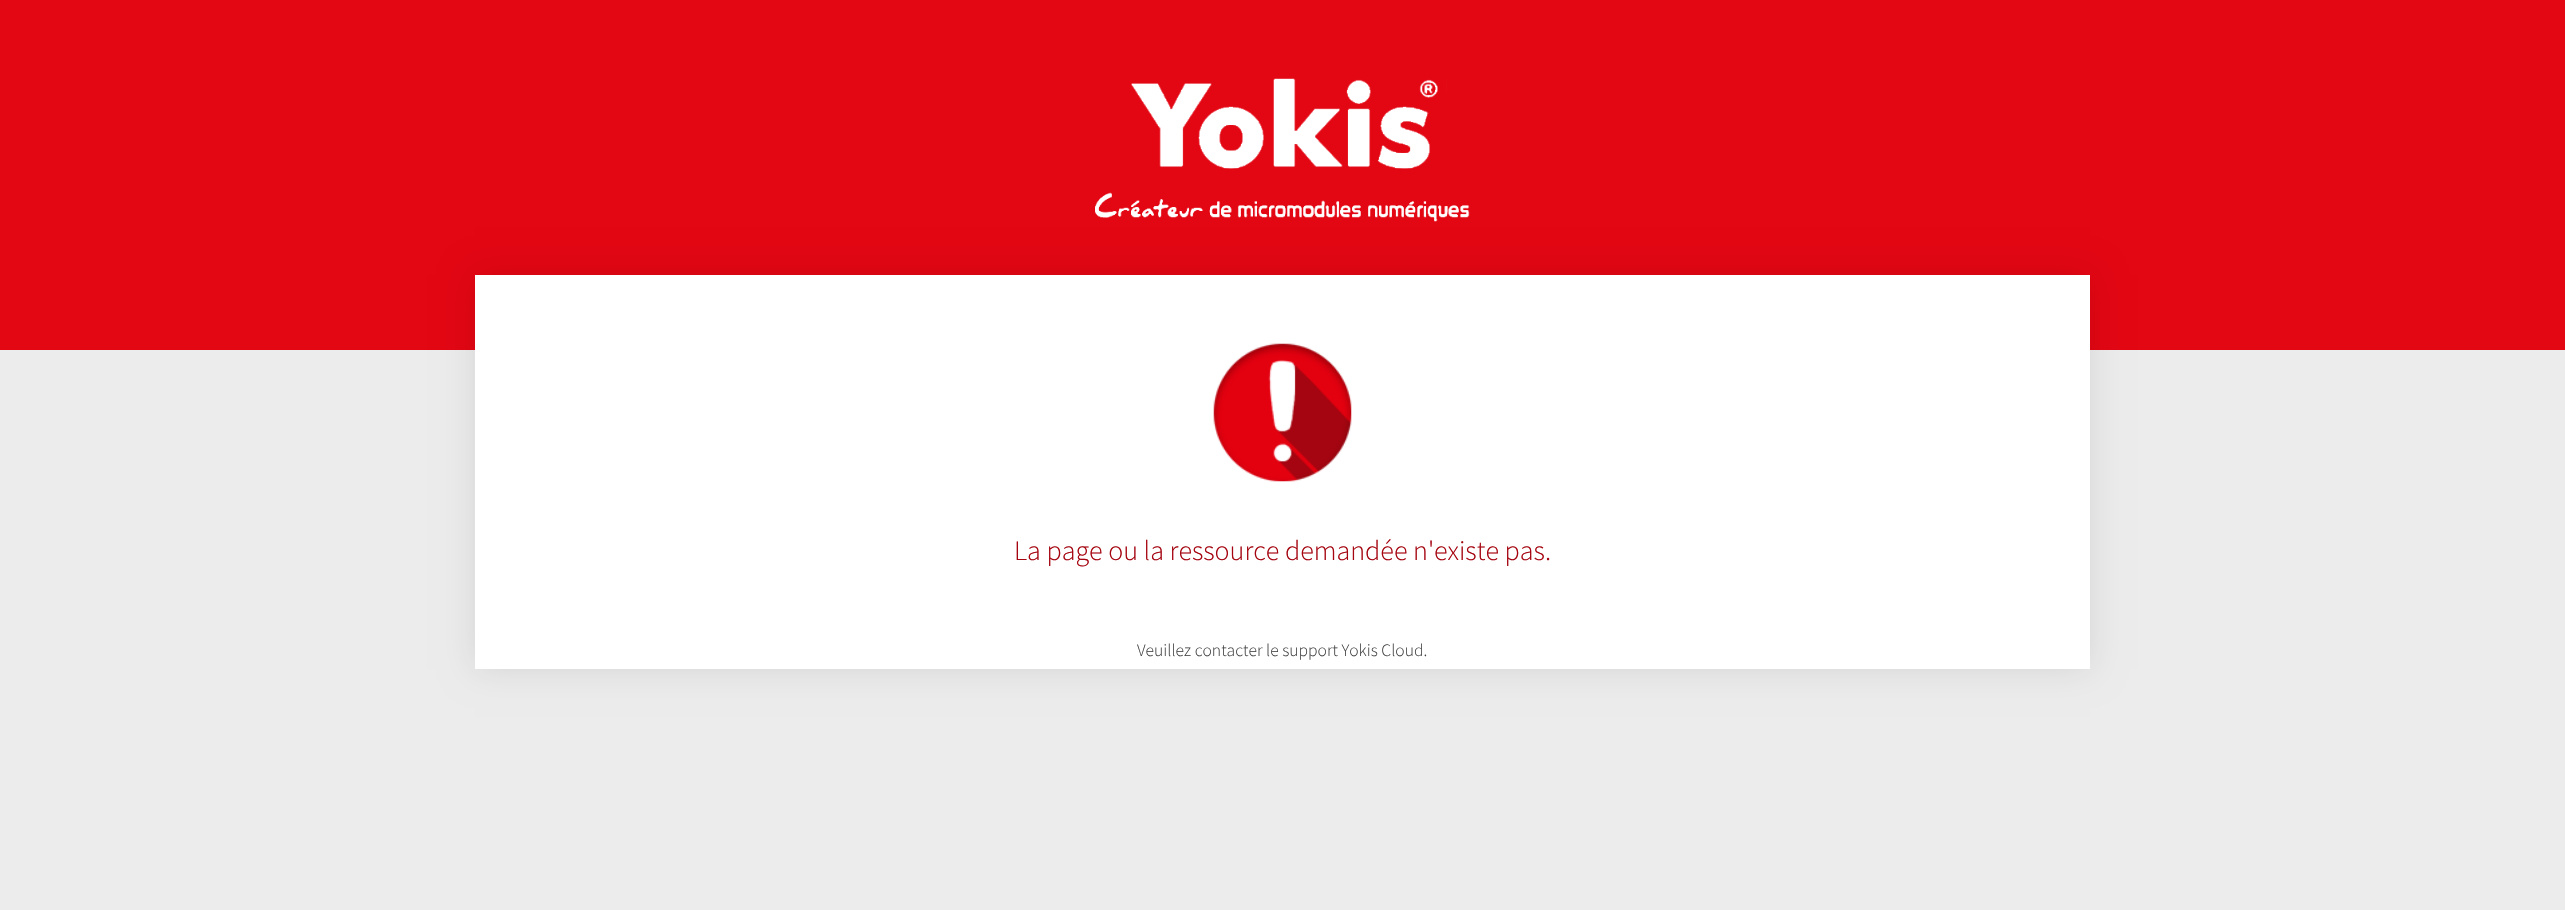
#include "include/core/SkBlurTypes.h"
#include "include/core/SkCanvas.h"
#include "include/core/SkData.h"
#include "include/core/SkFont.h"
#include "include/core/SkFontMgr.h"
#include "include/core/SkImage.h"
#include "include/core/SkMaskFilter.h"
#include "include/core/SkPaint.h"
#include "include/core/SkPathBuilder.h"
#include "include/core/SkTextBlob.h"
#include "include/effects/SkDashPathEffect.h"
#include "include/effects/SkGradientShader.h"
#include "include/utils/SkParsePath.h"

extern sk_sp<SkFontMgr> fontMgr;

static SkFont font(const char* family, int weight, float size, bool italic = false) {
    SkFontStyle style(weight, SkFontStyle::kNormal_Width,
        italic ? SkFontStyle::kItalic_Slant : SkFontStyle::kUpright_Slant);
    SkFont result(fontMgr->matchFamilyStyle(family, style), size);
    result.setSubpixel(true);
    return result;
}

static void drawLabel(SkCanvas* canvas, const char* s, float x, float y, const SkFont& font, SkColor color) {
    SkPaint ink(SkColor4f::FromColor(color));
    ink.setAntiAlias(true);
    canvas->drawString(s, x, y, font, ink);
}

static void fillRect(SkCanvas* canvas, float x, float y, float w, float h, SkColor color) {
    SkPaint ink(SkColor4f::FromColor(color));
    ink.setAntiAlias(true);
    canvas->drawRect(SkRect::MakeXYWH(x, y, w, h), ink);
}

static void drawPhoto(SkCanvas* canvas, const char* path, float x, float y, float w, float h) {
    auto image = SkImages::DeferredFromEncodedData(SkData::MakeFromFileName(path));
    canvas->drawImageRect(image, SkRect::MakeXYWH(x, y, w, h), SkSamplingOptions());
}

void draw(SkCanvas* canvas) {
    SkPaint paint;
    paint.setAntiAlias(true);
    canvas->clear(0xFFECECEC);
    fillRect(canvas, 0, 0, 2565, 350, 0xFFE30613);
    drawPhoto(canvas, "assets/img1.png", 1095, 78, 375, 144);
    paint.setColor(0x1A000000);
    paint.setMaskFilter(SkMaskFilter::MakeBlur(kNormal_SkBlurStyle, 16));
    canvas->drawRect(SkRect::MakeXYWH(475, 275, 1615, 394), paint);
    paint.setMaskFilter(nullptr);
    fillRect(canvas, 475, 275, 1615, 394, 0xFFFFFFFF);
    drawPhoto(canvas, "assets/img2.png", 1213, 343, 139, 139);
    SkFont font1 = font("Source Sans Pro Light", 300, 28);
    drawLabel(canvas, "La page ou la ressource demandée n'existe pas.", 1014, 560, font1, 0xFFA50510);
    SkFont font2 = font("Source Sans Pro Light", 300, 17.5f);
    drawLabel(canvas, "Veuillez contacter le support Yokis Cloud.", 1137, 656, font2, 0xFF444444);
}
